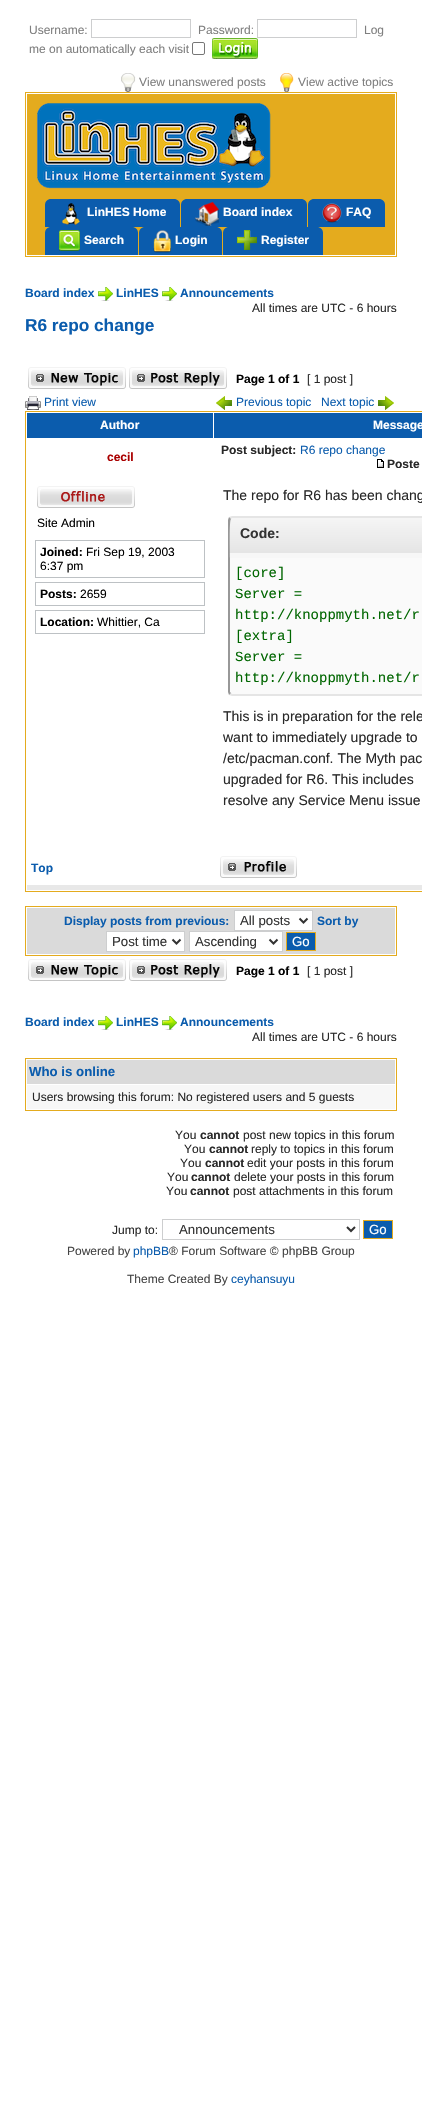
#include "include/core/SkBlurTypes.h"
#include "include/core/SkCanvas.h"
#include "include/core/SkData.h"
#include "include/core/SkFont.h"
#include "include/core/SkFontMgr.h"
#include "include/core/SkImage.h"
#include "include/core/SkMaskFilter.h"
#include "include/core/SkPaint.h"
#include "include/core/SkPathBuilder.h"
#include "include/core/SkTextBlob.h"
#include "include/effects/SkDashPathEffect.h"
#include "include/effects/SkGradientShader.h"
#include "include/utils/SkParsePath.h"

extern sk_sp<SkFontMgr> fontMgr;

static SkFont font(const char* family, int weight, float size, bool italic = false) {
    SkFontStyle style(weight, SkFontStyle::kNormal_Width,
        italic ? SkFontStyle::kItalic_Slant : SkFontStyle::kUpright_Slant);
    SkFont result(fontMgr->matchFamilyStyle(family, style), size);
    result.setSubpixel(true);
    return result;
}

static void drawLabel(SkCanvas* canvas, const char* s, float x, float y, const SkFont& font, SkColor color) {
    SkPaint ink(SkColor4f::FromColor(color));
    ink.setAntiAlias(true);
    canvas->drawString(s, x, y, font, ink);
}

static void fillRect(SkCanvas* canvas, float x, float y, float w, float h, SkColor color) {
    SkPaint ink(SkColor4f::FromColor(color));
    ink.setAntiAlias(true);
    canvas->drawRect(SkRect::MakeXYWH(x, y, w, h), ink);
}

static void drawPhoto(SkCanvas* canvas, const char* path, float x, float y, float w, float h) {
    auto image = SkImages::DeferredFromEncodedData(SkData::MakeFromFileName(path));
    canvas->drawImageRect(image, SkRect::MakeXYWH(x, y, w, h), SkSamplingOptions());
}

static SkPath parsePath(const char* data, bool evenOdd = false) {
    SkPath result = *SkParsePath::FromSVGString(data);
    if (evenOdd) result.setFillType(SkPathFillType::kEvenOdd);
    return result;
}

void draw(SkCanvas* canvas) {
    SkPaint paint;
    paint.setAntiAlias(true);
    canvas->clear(0xFFFFFFFF);
    SkFont font1 = font("Liberation Sans", 400, 12);
    drawLabel(canvas, "Username:", 29, 34, font1, 0xFF7F7F7F);
    paint.setStroke(true);
    paint.setStrokeWidth(1);
    paint.setColor(0xFFCDCECF);
    canvas->drawRect(SkRect::MakeXYWH(91.5f, 19.5f, 99, 18), paint);
    drawLabel(canvas, "Log", 364, 34, font1, 0xFF7F7F7F);
    drawLabel(canvas, "me on automatically each visit", 29, 53, font1, 0xFF7F7F7F);
    paint.setColor(0xFF767676);
    canvas->drawRoundRect(SkRect::MakeXYWH(192.5f, 42.5f, 12, 12), 1.5f, 1.5f, paint);
    drawLabel(canvas, "Password:", 198, 34, font1, 0xFF7F7F7F);
    paint.setColor(0xFFCDCECF);
    canvas->drawRect(SkRect::MakeXYWH(257.5f, 19.5f, 99, 18), paint);
    drawPhoto(canvas, "assets/img1.png", 212, 38, 46, 21);
    drawPhoto(canvas, "assets/img2.png", 121, 73, 15, 19);
    drawLabel(canvas, "View unanswered posts", 139, 86, font1, 0xFF7F7F7F);
    drawPhoto(canvas, "assets/img3.png", 280, 73, 14, 19);
    drawLabel(canvas, "View active topics", 298, 86, font1, 0xFF7F7F7F);
    paint.setColor(0xFFE4AB1E);
    canvas->drawRect(SkRect::MakeXYWH(25.5f, 92.5f, 371, 164), paint);
    fillRect(canvas, 27, 94, 368, 161, 0xFFE4AB1E);
    drawPhoto(canvas, "assets/img4.png", 36, 103, 235, 86);
    paint.setStroke(false);
    paint.setColor(0xFF0B5CAD);
    canvas->drawPath(parsePath("M51 199H174C177.5 199 180 201.5 180 205V227H45V205C45 201.5 47.5 199 51 199Z"), paint);
    drawPhoto(canvas, "assets/img5.png", 62, 203, 18, 22);
    SkFont font2 = font("Liberation Sans", 700, 12);
    drawLabel(canvas, "LinHES Home", 87, 216, font2, 0xFFFFFFFF);
    canvas->drawPath(parsePath("M187 199H301C304.5 199 307 201.5 307 205V227H181V205C181 201.5 183.5 199 187 199Z"), paint);
    drawPhoto(canvas, "assets/img6.png", 195, 202, 24, 24);
    drawLabel(canvas, "Board index", 223, 216, font2, 0xFFFFFFFF);
    canvas->drawPath(parsePath("M314 199H379C382.5 199 385 201.5 385 205V227H308V205C308 201.5 310.5 199 314 199Z"), paint);
    drawPhoto(canvas, "assets/img7.png", 322, 203, 20, 20);
    drawLabel(canvas, "FAQ", 346, 216, font2, 0xFFFFFFFF);
    canvas->drawPath(parsePath("M51 227H132C135.5 227 138 229.5 138 233V255H45V233C45 229.5 47.5 227 51 227Z"), paint);
    drawPhoto(canvas, "assets/img8.png", 59, 230, 21, 21);
    drawLabel(canvas, "Search", 84, 244, font2, 0xFFFFFFFF);
    canvas->drawPath(parsePath("M145 227H216C219.5 227 222 229.5 222 233V255H139V233C139 229.5 141.5 227 145 227Z"), paint);
    drawPhoto(canvas, "assets/img9.png", 153, 230, 18, 23);
    drawLabel(canvas, "Login", 175, 244, font2, 0xFFFFFFFF);
    canvas->drawPath(parsePath("M229 227H317C320.5 227 323 229.5 323 233V255H223V233C223 229.5 225.5 227 229 227Z"), paint);
    drawPhoto(canvas, "assets/img10.png", 237, 230, 20, 20);
    drawLabel(canvas, "Register", 261, 244, font2, 0xFFFFFFFF);
    drawLabel(canvas, "Board index", 25, 297, font2, 0xFF0B5CAD);
    drawPhoto(canvas, "assets/img11.png", 98, 287, 15, 14);
    drawLabel(canvas, "LinHES", 116, 297, font2, 0xFF0B5CAD);
    drawPhoto(canvas, "assets/img11.png", 162, 287, 15, 14);
    drawLabel(canvas, "Announcements", 180, 297, font2, 0xFF0B5CAD);
    drawLabel(canvas, "All times are UTC - 6 hours", 252, 312, font1, 0xFF282828);
    SkFont font3 = font("Liberation Sans", 700, 17.25f);
    drawLabel(canvas, "R6 repo change", 25, 331, font3, 0xFF0B5CAD);
    drawPhoto(canvas, "assets/img12.png", 28, 367, 98, 22);
    drawPhoto(canvas, "assets/img13.png", 129, 367, 98, 22);
    drawLabel(canvas, "Page 1 of 1", 236, 383, font2, 0xFF000000);
    drawLabel(canvas, "[ 1 post ]", 307, 383, font1, 0xFF282828);
    drawPhoto(canvas, "assets/img14.png", 25, 396, 16, 14);
    drawLabel(canvas, "Print view", 44, 406, font1, 0xFF0B5CAD);
    drawPhoto(canvas, "assets/img15.png", 216, 396, 16, 14);
    drawLabel(canvas, "Previous topic", 236, 406, font1, 0xFF0B5CAD);
    drawLabel(canvas, "Next topic", 321, 406, font1, 0xFF0B5CAD);
    drawPhoto(canvas, "assets/img16.png", 378, 396, 16, 14);
    paint.setStroke(true);
    paint.setColor(0xFFE4AB1E);
    canvas->drawRect(SkRect::MakeXYWH(25.5f, 411.5f, 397, 480), paint);
    fillRect(canvas, 27, 413, 186, 25, 0xFF0B5CAD);
    drawLabel(canvas, "Author", 100, 429, font2, 0xFFFFFFFF);
    fillRect(canvas, 214, 413, 208, 25, 0xFF0B5CAD);
    drawLabel(canvas, "Message", 373, 429, font2, 0xFFFFFFFF);
    drawLabel(canvas, "cecil", 107, 461, font2, 0xFFAA0000);
    drawLabel(canvas, "Post subject:", 221, 454, font2, 0xFF282828);
    drawLabel(canvas, "R6 repo change", 300, 454, font1, 0xFF0B5CAD);
    drawPhoto(canvas, "assets/img17.png", 377, 459, 7, 9);
    drawLabel(canvas, "Poste", 387, 468, font2, 0xFF282828);
    drawPhoto(canvas, "assets/img18.png", 37, 486, 98, 22);
    drawLabel(canvas, "Site Admin", 37, 527, font1, 0xFF000000);
    paint.setColor(0xFFBDC1C4);
    canvas->drawRect(SkRect::MakeXYWH(35.5f, 540.5f, 169, 37), paint);
    drawLabel(canvas, "Joined:", 40, 556, font2, 0xFF000000);
    drawLabel(canvas, "Fri Sep 19, 2003", 86, 556, font1, 0xFF000000);
    drawLabel(canvas, "6:37 pm", 40, 570, font1, 0xFF000000);
    canvas->drawRect(SkRect::MakeXYWH(35.5f, 582.5f, 169, 23), paint);
    drawLabel(canvas, "Posts:", 40, 598, font2, 0xFF000000);
    drawLabel(canvas, "2659", 80, 598, font1, 0xFF000000);
    canvas->drawRect(SkRect::MakeXYWH(35.5f, 610.5f, 169, 23), paint);
    drawLabel(canvas, "Location:", 40, 626, font2, 0xFF000000);
    drawLabel(canvas, "Whittier, Ca", 97, 626, font1, 0xFF000000);
    SkFont font4 = font("Liberation Sans", 400, 14);
    drawLabel(canvas, "The repo for R6 has been chang", 223, 500, font4, 0xFF282828);
    fillRect(canvas, 230, 553, 192, 5, 0xFFF7F7F7);
    drawPhoto(canvas, "assets/img19.png", 228, 518, 194, 35);
    paint.setStroke(false);
    paint.setColor(0xFFE5E5E5);
    canvas->drawPath(parsePath("M232 516L229 517L231 519L232 518H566L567 519L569 517L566 516Z"), paint);
    paint.setColor(0xFF989898);
    canvas->drawPath(parsePath("M228 558H230C230 553 229 520 231 519L229 517L228 520Z"), paint);
    SkFont font5 = font("Liberation Sans", 700, 14);
    drawLabel(canvas, "Code:", 240, 538, font5, 0xFF333333);
    paint.setColor(0xFFFAFAFA);
    canvas->drawPath(parsePath("M230 558H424V692C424 693 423 694 422 694H232C231 694 230 693 230 692Z"), paint);
    paint.setColor(0xFFE5E5E5);
    canvas->drawPath(parsePath("M232 696H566L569 695L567 693L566 694H232L231 693L229 695Z"), paint);
    paint.setColor(0xFF989898);
    canvas->drawPath(parsePath("M228 558H230V692L231 693L229 695L228 692Z"), paint);
    SkFont font6 = font("Liberation Mono", 400, 14);
    drawLabel(canvas, "[core]", 235, 577, font6, 0xFF006600);
    drawLabel(canvas, "Server =", 235, 598, font6, 0xFF006600);
    drawLabel(canvas, "http://knoppmyth.net/r", 235, 619, font6, 0xFF006600);
    drawLabel(canvas, "[extra]", 235, 640, font6, 0xFF006600);
    drawLabel(canvas, "Server =", 235, 661, font6, 0xFF006600);
    drawLabel(canvas, "http://knoppmyth.net/r", 235, 682, font6, 0xFF006600);
    drawLabel(canvas, "This is in preparation for the rele", 223, 721, font4, 0xFF282828);
    drawLabel(canvas, "want to immediately upgrade to", 223, 742, font4, 0xFF282828);
    drawLabel(canvas, "/etc/pacman.conf. The Myth pac", 223, 763, font4, 0xFF282828);
    drawLabel(canvas, "upgraded for R6. This includes", 223, 784, font4, 0xFF282828);
    drawLabel(canvas, "resolve any Service Menu issue", 223, 805, font4, 0xFF282828);
    drawLabel(canvas, "Top", 31, 872, font2, 0xFF0B5CAD);
    drawPhoto(canvas, "assets/img20.png", 220, 856, 77, 22);
    fillRect(canvas, 27, 885, 395, 5, 0xFFE8E8E8);
    paint.setStroke(true);
    paint.setColor(0xFFE4AB1E);
    canvas->drawRect(SkRect::MakeXYWH(25.5f, 906.5f, 371, 49), paint);
    fillRect(canvas, 27, 908, 368, 46, 0xFFDADADA);
    drawLabel(canvas, "Display posts from previous:", 64, 925, font2, 0xFF0B5CAD);
    paint.setStroke(false);
    paint.setColor(0xFFFFFFFF);
    canvas->drawRect(SkRect::MakeXYWH(234.5f, 910.5f, 78, 20), paint);
    paint.setStroke(true);
    paint.setColor(0xFFCDCECF);
    canvas->drawRect(SkRect::MakeXYWH(234.5f, 910.5f, 78, 20), paint);
    paint.setStrokeWidth(2);
    paint.setColor(0xFF333333);
    canvas->drawPath(parsePath("M299.5 918.5L303.5 922.5L307.5 918.5"), paint);
    SkFont font7 = font("Liberation Sans", 400, 13.25f);
    drawLabel(canvas, "All posts", 240, 925, font7, 0xFF333333);
    drawLabel(canvas, "Sort by", 317, 925, font2, 0xFF0B5CAD);
    paint.setStroke(false);
    paint.setColor(0xFFFFFFFF);
    canvas->drawRect(SkRect::MakeXYWH(106.5f, 931.5f, 78, 20), paint);
    paint.setStroke(true);
    paint.setStrokeWidth(1);
    paint.setColor(0xFFCDCECF);
    canvas->drawRect(SkRect::MakeXYWH(106.5f, 931.5f, 78, 20), paint);
    paint.setStrokeWidth(2);
    paint.setColor(0xFF333333);
    canvas->drawPath(parsePath("M172.5 939.5L176.5 943.5L180.5 939.5"), paint);
    drawLabel(canvas, "Post time", 112, 946, font7, 0xFF333333);
    paint.setStroke(false);
    paint.setColor(0xFFFFFFFF);
    canvas->drawRect(SkRect::MakeXYWH(189.5f, 931.5f, 93, 20), paint);
    paint.setStroke(true);
    paint.setStrokeWidth(1);
    paint.setColor(0xFFCDCECF);
    canvas->drawRect(SkRect::MakeXYWH(189.5f, 931.5f, 93, 20), paint);
    paint.setStrokeWidth(2);
    paint.setColor(0xFF333333);
    canvas->drawPath(parsePath("M269.5 939.5L273.5 943.5L277.5 939.5"), paint);
    drawLabel(canvas, "Ascending", 195, 946, font7, 0xFF333333);
    paint.setStroke(false);
    paint.setColor(0xFF0B5CAD);
    canvas->drawRect(SkRect::MakeXYWH(286.5f, 932.5f, 29, 18), paint);
    paint.setStroke(true);
    paint.setStrokeWidth(1);
    paint.setColor(0xFFE4AB1E);
    canvas->drawRect(SkRect::MakeXYWH(286.5f, 932.5f, 29, 18), paint);
    drawLabel(canvas, "Go", 292, 946, font7, 0xFFFFFFFF);
    drawPhoto(canvas, "assets/img12.png", 28, 959, 98, 22);
    drawPhoto(canvas, "assets/img13.png", 129, 959, 98, 22);
    drawLabel(canvas, "Page 1 of 1", 236, 975, font2, 0xFF000000);
    drawLabel(canvas, "[ 1 post ]", 307, 975, font1, 0xFF282828);
    drawLabel(canvas, "Board index", 25, 1026, font2, 0xFF0B5CAD);
    drawPhoto(canvas, "assets/img11.png", 98, 1016, 15, 14);
    drawLabel(canvas, "LinHES", 116, 1026, font2, 0xFF0B5CAD);
    drawPhoto(canvas, "assets/img11.png", 162, 1016, 15, 14);
    drawLabel(canvas, "Announcements", 180, 1026, font2, 0xFF0B5CAD);
    drawLabel(canvas, "All times are UTC - 6 hours", 252, 1041, font1, 0xFF282828);
    canvas->drawRect(SkRect::MakeXYWH(25.5f, 1058.5f, 371, 52), paint);
    fillRect(canvas, 27, 1060, 368, 24, 0xFFDADADA);
    SkFont font8 = font("Liberation Sans", 700, 13.25f);
    drawLabel(canvas, "Who is online", 29, 1076, font8, 0xFF0B5CAD);
    fillRect(canvas, 27, 1085, 368, 24, 0xFFF7F7F7);
    drawLabel(canvas, "Users browsing this forum: No registered users and 5 guests", 32, 1101, font1, 0xFF282828);
    drawLabel(canvas, "You", 175, 1139, font1, 0xFF282828);
    drawLabel(canvas, "cannot", 200, 1139, font2, 0xFF282828);
    drawLabel(canvas, "post new topics in this forum", 243, 1139, font1, 0xFF282828);
    drawLabel(canvas, "You", 184, 1153, font1, 0xFF282828);
    drawLabel(canvas, "cannot", 209, 1153, font2, 0xFF282828);
    drawLabel(canvas, "reply to topics in this forum", 251, 1153, font1, 0xFF282828);
    drawLabel(canvas, "You", 180, 1167, font1, 0xFF282828);
    drawLabel(canvas, "cannot", 205, 1167, font2, 0xFF282828);
    drawLabel(canvas, "edit your posts in this forum", 247, 1167, font1, 0xFF282828);
    drawLabel(canvas, "You", 167, 1181, font1, 0xFF282828);
    drawLabel(canvas, "cannot", 191, 1181, font2, 0xFF282828);
    drawLabel(canvas, "delete your posts in this forum", 234, 1181, font1, 0xFF282828);
    drawLabel(canvas, "You", 166, 1195, font1, 0xFF282828);
    drawLabel(canvas, "cannot", 190, 1195, font2, 0xFF282828);
    drawLabel(canvas, "post attachments in this forum", 233, 1195, font1, 0xFF282828);
    drawLabel(canvas, "Jump to:", 112, 1234, font1, 0xFF282828);
    paint.setColor(0xFFCDCECF);
    canvas->drawRect(SkRect::MakeXYWH(162.5f, 1219.5f, 197, 20), paint);
    paint.setStrokeWidth(2);
    paint.setColor(0xFF333333);
    canvas->drawPath(parsePath("M347 1227L351 1231L355 1227"), paint);
    drawLabel(canvas, "Announcements", 179, 1234, font7, 0xFF333333);
    paint.setStroke(false);
    paint.setColor(0xFF0B5CAD);
    canvas->drawRect(SkRect::MakeXYWH(363.5f, 1220.5f, 29, 18), paint);
    paint.setStroke(true);
    paint.setStrokeWidth(1);
    paint.setColor(0xFFE4AB1E);
    canvas->drawRect(SkRect::MakeXYWH(363.5f, 1220.5f, 29, 18), paint);
    drawLabel(canvas, "Go", 369, 1234, font7, 0xFFFFFFFF);
    drawLabel(canvas, "Powered by", 67, 1255, font1, 0xFF444444);
    drawLabel(canvas, "phpBB", 133, 1255, font1, 0xFF0B5CAD);
    drawLabel(canvas, "® Forum Software © phpBB Group", 169, 1255, font1, 0xFF444444);
    drawLabel(canvas, "Theme Created By", 127, 1283, font1, 0xFF444444);
    drawLabel(canvas, "ceyhansuyu", 231, 1283, font1, 0xFF0B5CAD);
}
